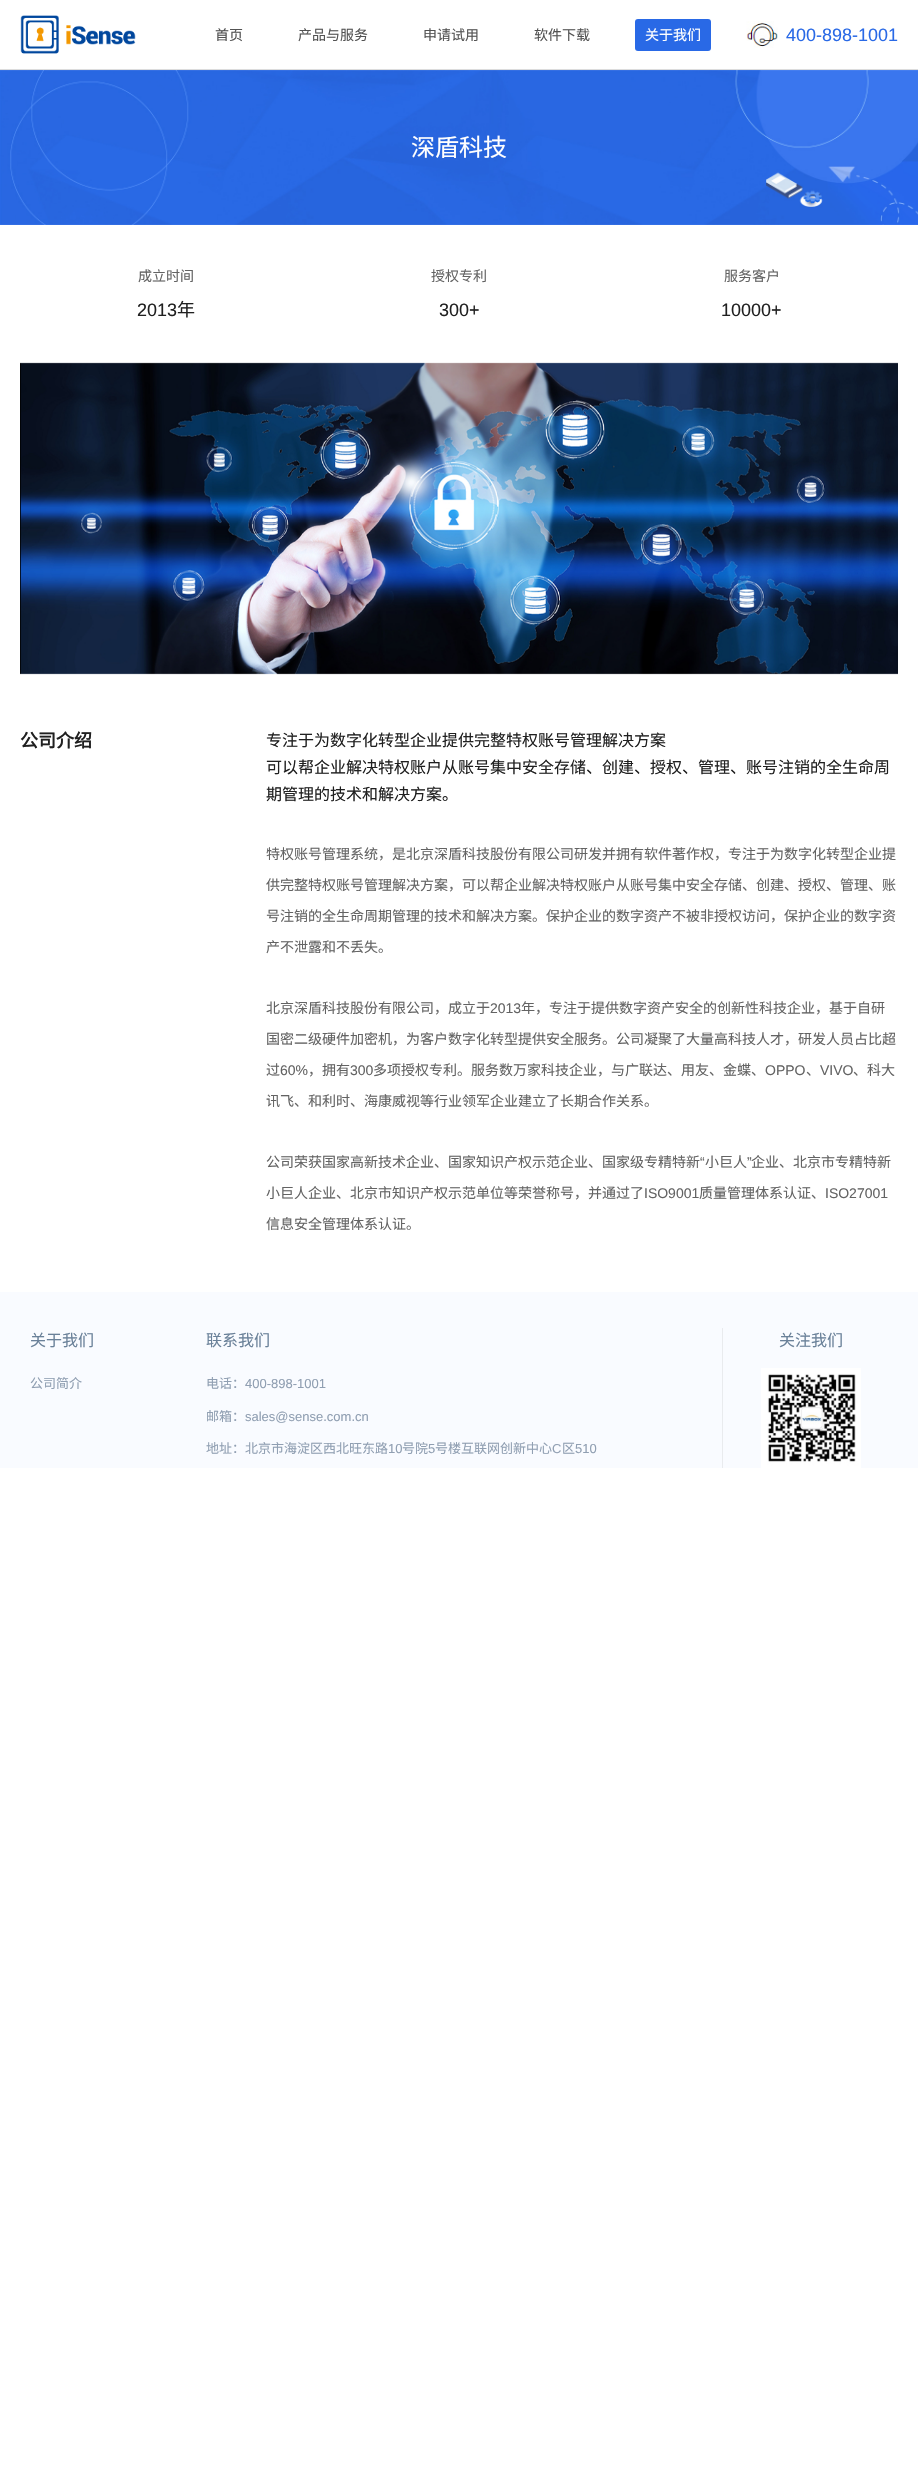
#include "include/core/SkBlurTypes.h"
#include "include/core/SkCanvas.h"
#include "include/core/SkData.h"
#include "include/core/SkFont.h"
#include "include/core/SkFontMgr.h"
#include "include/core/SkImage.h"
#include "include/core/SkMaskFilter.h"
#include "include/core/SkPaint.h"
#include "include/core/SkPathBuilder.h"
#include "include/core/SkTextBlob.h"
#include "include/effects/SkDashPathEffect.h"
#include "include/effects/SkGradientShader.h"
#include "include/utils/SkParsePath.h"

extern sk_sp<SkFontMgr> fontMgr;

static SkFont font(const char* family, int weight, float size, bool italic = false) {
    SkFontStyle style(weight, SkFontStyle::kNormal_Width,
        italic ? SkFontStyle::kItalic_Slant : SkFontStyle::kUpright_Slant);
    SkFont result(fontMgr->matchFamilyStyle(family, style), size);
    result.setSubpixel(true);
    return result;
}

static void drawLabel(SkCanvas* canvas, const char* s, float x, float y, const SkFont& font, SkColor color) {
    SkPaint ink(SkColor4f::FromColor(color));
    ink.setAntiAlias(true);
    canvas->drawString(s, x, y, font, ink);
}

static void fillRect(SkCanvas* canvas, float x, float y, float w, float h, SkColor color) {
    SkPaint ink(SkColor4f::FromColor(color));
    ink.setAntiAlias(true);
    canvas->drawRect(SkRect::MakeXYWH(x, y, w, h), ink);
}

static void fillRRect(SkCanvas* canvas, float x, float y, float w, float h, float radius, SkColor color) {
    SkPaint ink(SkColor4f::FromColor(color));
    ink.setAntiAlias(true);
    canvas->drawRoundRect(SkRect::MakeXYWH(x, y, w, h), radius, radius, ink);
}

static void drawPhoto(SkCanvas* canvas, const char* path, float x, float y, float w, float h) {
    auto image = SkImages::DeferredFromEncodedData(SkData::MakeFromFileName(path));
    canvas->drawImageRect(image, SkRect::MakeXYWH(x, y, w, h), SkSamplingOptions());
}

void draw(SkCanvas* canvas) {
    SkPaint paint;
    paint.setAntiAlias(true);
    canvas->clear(0xFFFFFFFF);
    fillRect(canvas, 0, 69, 918, 1, 0xFFDCDCDC);
    drawPhoto(canvas, "assets/img1.png", 20, 15, 116, 39);
    SkFont font1 = font("Noto Sans CJK SC", 400, 14);
    drawLabel(canvas, "首页", 215, 40, font1, 0xFF525252);
    drawLabel(canvas, "产品与服务", 298, 40, font1, 0xFF525252);
    drawLabel(canvas, "申请试用", 423, 40, font1, 0xFF525252);
    drawLabel(canvas, "软件下载", 534, 40, font1, 0xFF525252);
    fillRRect(canvas, 635, 19, 76, 32, 3, 0xFF2969E6);
    drawLabel(canvas, "关于我们", 645, 40, font1, 0xFFFFFFFF);
    drawPhoto(canvas, "assets/img2.png", 746, 21, 32, 27);
    SkFont font2 = font("Liberation Sans", 400, 18);
    drawLabel(canvas, "400-898-1001", 786, 41, font2, 0xFF2969E6);
    drawPhoto(canvas, "assets/img3.png", 0, 70, 918, 155);
    SkFont font3 = font("Noto Sans CJK SC", 400, 24);
    drawLabel(canvas, "深盾科技", 411, 156, font3, 0xFFFFFFFF);
    drawLabel(canvas, "成立时间", 138, 281, font1, 0xFF636363);
    drawLabel(canvas, "2013", 137, 316, font2, 0xFF202020);
    SkFont font4 = font("Noto Sans CJK SC", 400, 18);
    drawLabel(canvas, "年", 177, 316, font4, 0xFF202020);
    drawLabel(canvas, "授权专利", 431, 281, font1, 0xFF636363);
    drawLabel(canvas, "300+", 439, 316, font2, 0xFF202020);
    drawLabel(canvas, "服务客户", 724, 281, font1, 0xFF636363);
    drawLabel(canvas, "10000+", 721, 316, font2, 0xFF202020);
    drawPhoto(canvas, "assets/img4.png", 20, 362, 878, 313);
    SkFont font5 = font("Noto Sans CJK SC", 700, 18);
    drawLabel(canvas, "公司介绍", 20, 747, font5, 0xFF202020);
    SkFont font6 = font("Noto Sans CJK SC", 400, 16);
    drawLabel(canvas, "专注于为数字化转型企业提供完整特权账号管理解决方案", 266, 746, font6, 0xFF202020);
    drawLabel(canvas, "可以帮企业解决特权账户从账号集中安全存储、创建、授权、管理、账号注销的全生命周", 266, 773, font6, 0xFF202020);
    drawLabel(canvas, "期管理的技术和解决方案。", 266, 800, font6, 0xFF202020);
    drawLabel(canvas, "特权账号管理系统，是北京深盾科技股份有限公司研发并拥有软件著作权，专注于为数字化转型企业提", 266, 859, font1, 0xFF636363);
    drawLabel(canvas, "供完整特权账号管理解决方案，可以帮企业解决特权账户从账号集中安全存储、创建、授权、管理、账", 266, 890, font1, 0xFF636363);
    drawLabel(canvas, "号注销的全生命周期管理的技术和解决方案。保护企业的数字资产不被非授权访问，保护企业的数字资", 266, 921, font1, 0xFF636363);
    drawLabel(canvas, "产不泄露和不丢失。", 266, 952, font1, 0xFF636363);
    drawLabel(canvas, "北京深盾科技股份有限公司，成立于", 266, 1013, font1, 0xFF636363);
    SkFont font7 = font("Liberation Sans", 400, 14);
    drawLabel(canvas, "2013", 490, 1013, font7, 0xFF636363);
    drawLabel(canvas, "年，专注于提供数字资产安全的创新性科技企业，基于自研", 521, 1013, font1, 0xFF636363);
    drawLabel(canvas, "国密二级硬件加密机，为客户数字化转型提供安全服务。公司凝聚了大量高科技人才，研发人员占比超", 266, 1044, font1, 0xFF636363);
    drawLabel(canvas, "过", 266, 1075, font1, 0xFF636363);
    drawLabel(canvas, "60%", 280, 1075, font7, 0xFF636363);
    drawLabel(canvas, "，拥有", 308, 1075, font1, 0xFF636363);
    drawLabel(canvas, "300", 350, 1075, font7, 0xFF636363);
    drawLabel(canvas, "多项授权专利。服务数万家科技企业，与广联达、用友、金蝶、", 373, 1075, font1, 0xFF636363);
    drawLabel(canvas, "OPPO", 765, 1075, font7, 0xFF636363);
    drawLabel(canvas, "、", 806, 1075, font1, 0xFF636363);
    drawLabel(canvas, "VIVO", 820, 1075, font7, 0xFF636363);
    drawLabel(canvas, "、科大", 853, 1075, font1, 0xFF636363);
    drawLabel(canvas, "讯飞、和利时、海康威视等行业领军企业建立了长期合作关系。", 266, 1106, font1, 0xFF636363);
    drawLabel(canvas, "公司荣获国家高新技术企业、国家知识产权示范企业、国家级专精特新", 266, 1167, font1, 0xFF636363);
    drawLabel(canvas, "“", 700, 1167, font7, 0xFF636363);
    drawLabel(canvas, "小巨人", 705, 1167, font1, 0xFF636363);
    drawLabel(canvas, "”", 747, 1167, font7, 0xFF636363);
    drawLabel(canvas, "企业、北京市专精特新", 751, 1167, font1, 0xFF636363);
    drawLabel(canvas, "小巨人企业、北京市知识产权示范单位等荣誉称号，并通过了", 266, 1198, font1, 0xFF636363);
    drawLabel(canvas, "ISO9001", 644, 1198, font7, 0xFF636363);
    drawLabel(canvas, "质量管理体系认证、", 699, 1198, font1, 0xFF636363);
    drawLabel(canvas, "ISO27001", 825, 1198, font7, 0xFF636363);
    drawLabel(canvas, "信息安全管理体系认证。", 266, 1229, font1, 0xFF636363);
    fillRect(canvas, 0, 1292, 918, 176, 0xFFF9FBFF);
    drawLabel(canvas, "关于我们", 30, 1346, font6, 0xFF6A8199);
    SkFont font8 = font("Noto Sans CJK SC", 400, 13);
    drawLabel(canvas, "公司简介", 30, 1388, font8, 0xFF909FB2);
    drawLabel(canvas, "联系我们", 206, 1346, font6, 0xFF6A8199);
    drawLabel(canvas, "电话：", 206, 1388, font8, 0xFF909FB2);
    SkFont font9 = font("Liberation Sans", 400, 13);
    drawLabel(canvas, "400-898-1001", 245, 1388, font9, 0xFF909FB2);
    drawLabel(canvas, "邮箱：", 206, 1421, font8, 0xFF909FB2);
    drawLabel(canvas, "sales@sense.com.cn", 245, 1421, font9, 0xFF909FB2);
    drawLabel(canvas, "地址：北京市海淀区西北旺东路", 206, 1453, font8, 0xFF909FB2);
    drawLabel(canvas, "10", 388, 1453, font9, 0xFF909FB2);
    drawLabel(canvas, "号院", 402, 1453, font8, 0xFF909FB2);
    drawLabel(canvas, "5", 428, 1453, font9, 0xFF909FB2);
    drawLabel(canvas, "号楼互联网创新中心", 435, 1453, font8, 0xFF909FB2);
    drawLabel(canvas, "C", 552, 1453, font9, 0xFF909FB2);
    drawLabel(canvas, "区", 562, 1453, font8, 0xFF909FB2);
    drawLabel(canvas, "510", 575, 1453, font9, 0xFF909FB2);
    fillRect(canvas, 722, 1328, 1, 140, 0xFFE9EBEE);
    drawLabel(canvas, "关注我们", 779, 1346, font6, 0xFF6A8199);
    drawPhoto(canvas, "assets/img5.png", 761, 1368, 100, 100);
}
